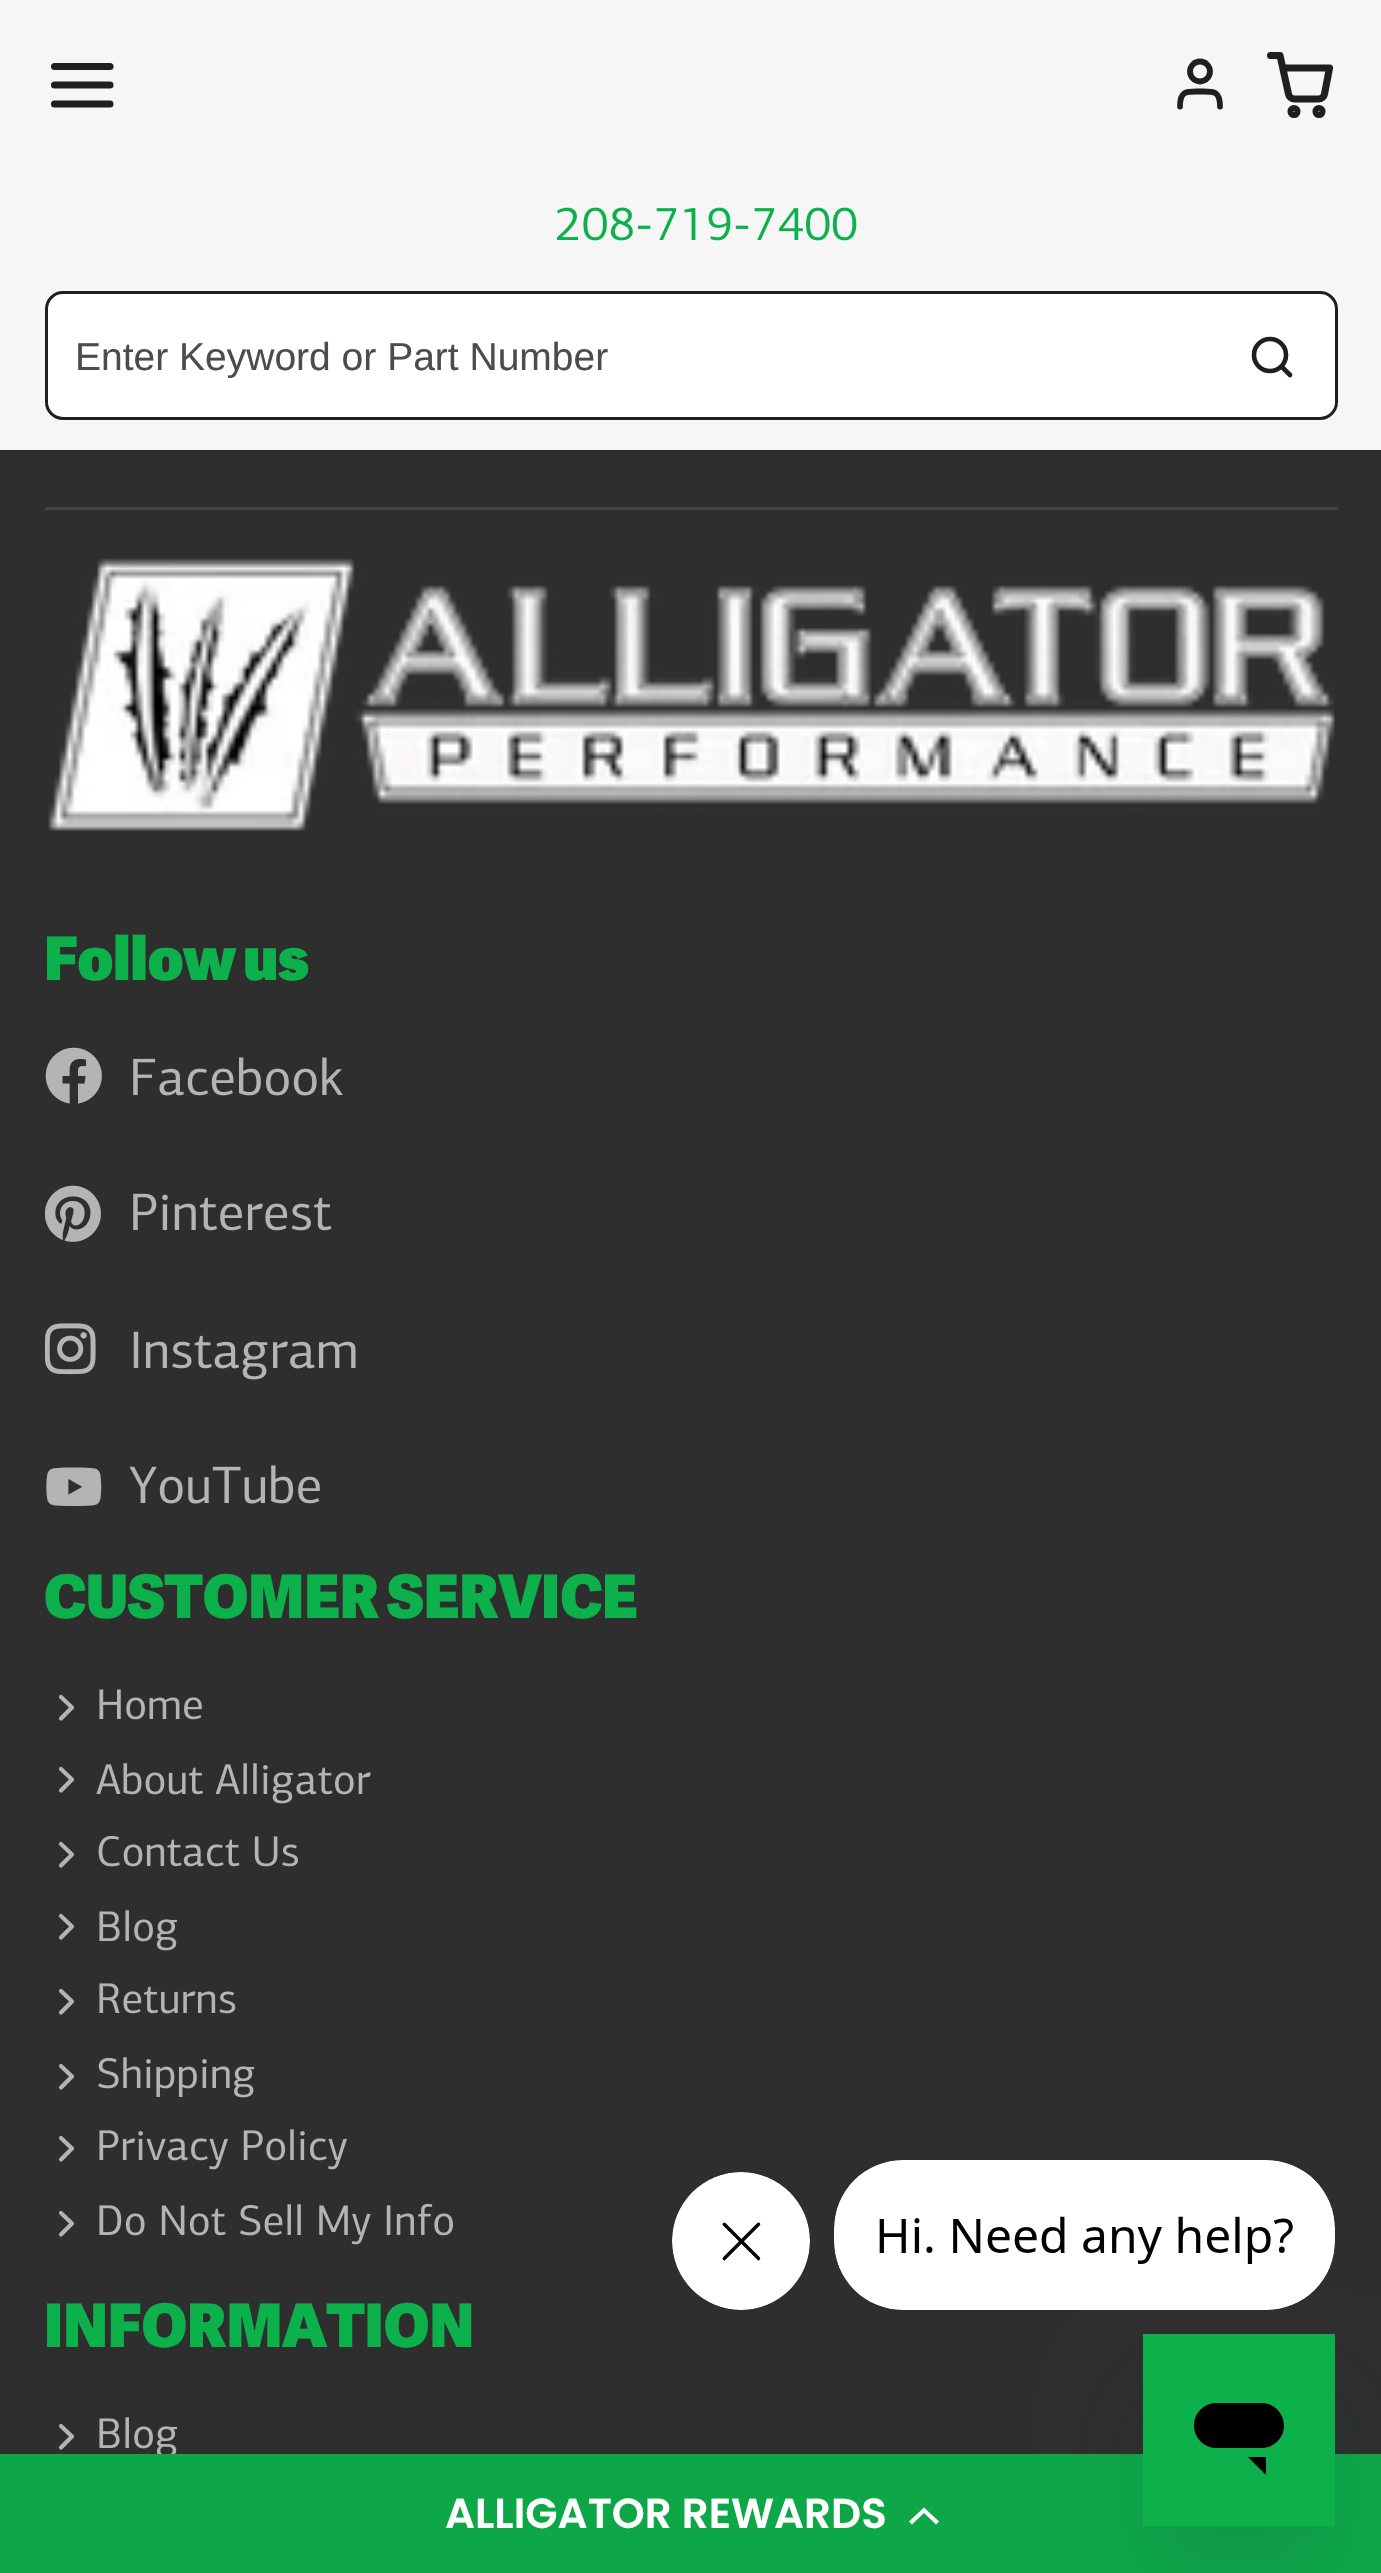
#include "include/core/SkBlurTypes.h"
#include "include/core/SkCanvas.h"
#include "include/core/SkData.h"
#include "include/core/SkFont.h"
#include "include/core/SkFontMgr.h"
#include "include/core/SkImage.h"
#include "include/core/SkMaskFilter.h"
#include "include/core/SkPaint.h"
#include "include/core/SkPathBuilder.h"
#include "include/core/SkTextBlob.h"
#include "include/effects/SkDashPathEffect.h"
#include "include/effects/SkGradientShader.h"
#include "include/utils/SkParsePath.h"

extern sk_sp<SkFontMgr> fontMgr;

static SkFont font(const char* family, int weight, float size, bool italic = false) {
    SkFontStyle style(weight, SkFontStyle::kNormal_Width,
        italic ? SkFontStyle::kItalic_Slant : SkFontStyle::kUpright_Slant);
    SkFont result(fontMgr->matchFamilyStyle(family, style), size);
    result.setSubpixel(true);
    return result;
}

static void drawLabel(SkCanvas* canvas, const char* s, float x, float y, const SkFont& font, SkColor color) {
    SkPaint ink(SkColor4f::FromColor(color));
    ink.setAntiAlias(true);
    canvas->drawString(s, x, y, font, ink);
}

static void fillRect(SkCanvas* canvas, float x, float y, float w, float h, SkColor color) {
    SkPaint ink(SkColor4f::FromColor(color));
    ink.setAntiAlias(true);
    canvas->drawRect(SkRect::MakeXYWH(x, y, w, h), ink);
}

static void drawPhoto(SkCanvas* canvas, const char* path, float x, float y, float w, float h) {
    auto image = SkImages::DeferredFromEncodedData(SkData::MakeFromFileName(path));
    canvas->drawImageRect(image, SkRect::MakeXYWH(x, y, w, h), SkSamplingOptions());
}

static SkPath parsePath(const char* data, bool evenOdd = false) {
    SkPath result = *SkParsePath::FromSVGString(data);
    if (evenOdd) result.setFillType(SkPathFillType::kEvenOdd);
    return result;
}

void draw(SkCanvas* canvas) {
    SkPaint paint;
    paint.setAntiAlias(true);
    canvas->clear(0xFF2E2E2E);
    fillRect(canvas, 0, 0, 1381, 450, 0xFFF6F6F6);
    paint.setStroke(true);
    paint.setStrokeWidth(7.1f);
    paint.setStrokeCap(SkPaint::kRound_Cap);
    paint.setStrokeJoin(SkPaint::kRound_Join);
    paint.setColor(0xFF1F1F1F);
    canvas->drawPath(parsePath("M54.5 85H110"), paint);
    canvas->drawPath(parsePath("M54.5 66.5H110"), paint);
    canvas->drawPath(parsePath("M54.5 104H110"), paint);
    paint.setStrokeWidth(5.8f);
    canvas->drawPath(parsePath("M1220 106.5C1220 90.5 1214 91.5 1200 91.5C1186 91.5 1180 90.5 1180 106.5"), paint);
    paint.setStrokeCap(SkPaint::kButt_Cap);
    paint.setStrokeJoin(SkPaint::kMiter_Join);
    canvas->drawCircle(1200, 71.5f, 10, paint);
    paint.setStrokeWidth(7.1f);
    canvas->drawCircle(1294, 111.5f, 3, paint);
    canvas->drawCircle(1319, 111.5f, 3, paint);
    paint.setStrokeCap(SkPaint::kRound_Cap);
    paint.setStrokeJoin(SkPaint::kRound_Join);
    canvas->drawPath(parsePath("M1270.5 55.5H1280L1288.5 94C1289 97 1291.5 99 1294.5 99H1318.5C1321.5 99 1324 97 1324.5 94L1329.5 68H1285"), paint);
    drawPhoto(canvas, "assets/img1.png", 556, 207, 301, 34);
    paint.setStroke(false);
    paint.setColor(0xFFFFFFFF);
    canvas->drawRoundRect(SkRect::MakeXYWH(46.5f, 292.5f, 1290, 126), 16.5f, 16.5f, paint);
    paint.setStroke(true);
    paint.setStrokeWidth(3);
    paint.setStrokeCap(SkPaint::kButt_Cap);
    paint.setStrokeJoin(SkPaint::kMiter_Join);
    paint.setColor(0xFF1F1F1F);
    canvas->drawRoundRect(SkRect::MakeXYWH(46.5f, 292.5f, 1290, 126), 16.5f, 16.5f, paint);
    SkFont font1 = font("Liberation Sans", 400, 39);
    drawLabel(canvas, "Enter Keyword or Part Number", 75, 370, font1, 0xFF4C4C4C);
    paint.setStrokeWidth(4.6f);
    canvas->drawCircle(1270, 355, 16, paint);
    paint.setStrokeCap(SkPaint::kRound_Cap);
    paint.setStrokeJoin(SkPaint::kRound_Join);
    canvas->drawPath(parsePath("M1290 375L1281.5 366.5"), paint);
    fillRect(canvas, 45, 507, 1293, 3, 0xFF434343);
    drawPhoto(canvas, "assets/img2.png", 48, 558, 1287, 273);
    SkFont font2 = font("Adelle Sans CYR", 900, 60);
    drawLabel(canvas, "Follow us", 44, 980, font2, 0xFF0DB14B);
    drawPhoto(canvas, "assets/img3.png", 45, 1047, 57, 57);
    drawPhoto(canvas, "assets/img4.png", 133, 1057, 210, 39);
    drawPhoto(canvas, "assets/img5.png", 45, 1185, 56, 57);
    drawPhoto(canvas, "assets/img6.png", 133, 1193, 199, 38);
    drawPhoto(canvas, "assets/img7.png", 45, 1323, 51, 52);
    drawPhoto(canvas, "assets/img8.png", 133, 1331, 223, 49);
    drawPhoto(canvas, "assets/img9.png", 46, 1467, 56, 40);
    drawPhoto(canvas, "assets/img10.png", 129, 1465, 191, 39);
    drawLabel(canvas, "CUSTOMER SERVICE", 44, 1618, font2, 0xFF0DB14B);
    paint.setStrokeWidth(4.1f);
    paint.setColor(0xFFB4B4B4);
    canvas->drawPath(parsePath("M61 1718.5L72 1707.5L61 1697"), paint);
    drawPhoto(canvas, "assets/img11.png", 99, 1689, 103, 31);
    canvas->drawPath(parsePath("M61 1790.5L72 1779.5L61 1769"), paint);
    drawPhoto(canvas, "assets/img12.png", 96, 1763, 275, 41);
    canvas->drawPath(parsePath("M61 1865.5L72 1854.5L61 1844"), paint);
    drawPhoto(canvas, "assets/img13.png", 98, 1835, 200, 32);
    canvas->drawPath(parsePath("M61 1937.5L72 1926.5L61 1916"), paint);
    drawPhoto(canvas, "assets/img14.png", 99, 1910, 78, 41);
    canvas->drawPath(parsePath("M61 2012.5L72 2001.5L61 1991"), paint);
    drawPhoto(canvas, "assets/img15.png", 99, 1983, 137, 31);
    canvas->drawPath(parsePath("M61 2087.5L72 2076.5L61 2066"), paint);
    drawPhoto(canvas, "assets/img16.png", 98, 2057, 157, 41);
    canvas->drawPath(parsePath("M61 2159.5L72 2148.5L61 2138"), paint);
    drawPhoto(canvas, "assets/img17.png", 99, 2129, 248, 41);
    canvas->drawPath(parsePath("M61 2234.5L72 2223.5L61 2213"), paint);
    drawPhoto(canvas, "assets/img18.png", 99, 2203, 354, 42);
    drawLabel(canvas, "INFORMATION", 44, 2347, font2, 0xFF0DB14B);
    canvas->drawPath(parsePath("M61 2447.5L72 2436.5L61 2426"), paint);
    drawPhoto(canvas, "assets/img19.png", 99, 2417, 78, 37);
    fillRect(canvas, 0, 2454, 1381, 119, 0xFF0DA747);
    SkFont font3 = font("Poppins", 600, 42);
    drawLabel(canvas, "ALLIGATOR REWARDS", 445, 2528, font3, 0xFFFFFFFF);
    paint.setStroke(false);
    paint.setColor(0xFFFFFFFF);
    canvas->drawPath(parsePath("M924 2513L912 2524.5L909 2521.5L924 2507.5L939 2521.5L936 2524.5Z"), paint);
    drawPhoto(canvas, "assets/img20.png", 672, 2172, 138, 138);
    drawPhoto(canvas, "assets/img21.png", 834, 2160, 501, 150);
    paint.setColor(0x2617494D);
    paint.setMaskFilter(SkMaskFilter::MakeBlur(kNormal_SkBlurStyle, 45));
    canvas->drawRect(SkRect::MakeXYWH(1143, 2394, 192, 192), paint);
    paint.setMaskFilter(nullptr);
    drawPhoto(canvas, "assets/img22.png", 1143, 2334, 192, 192);
}
